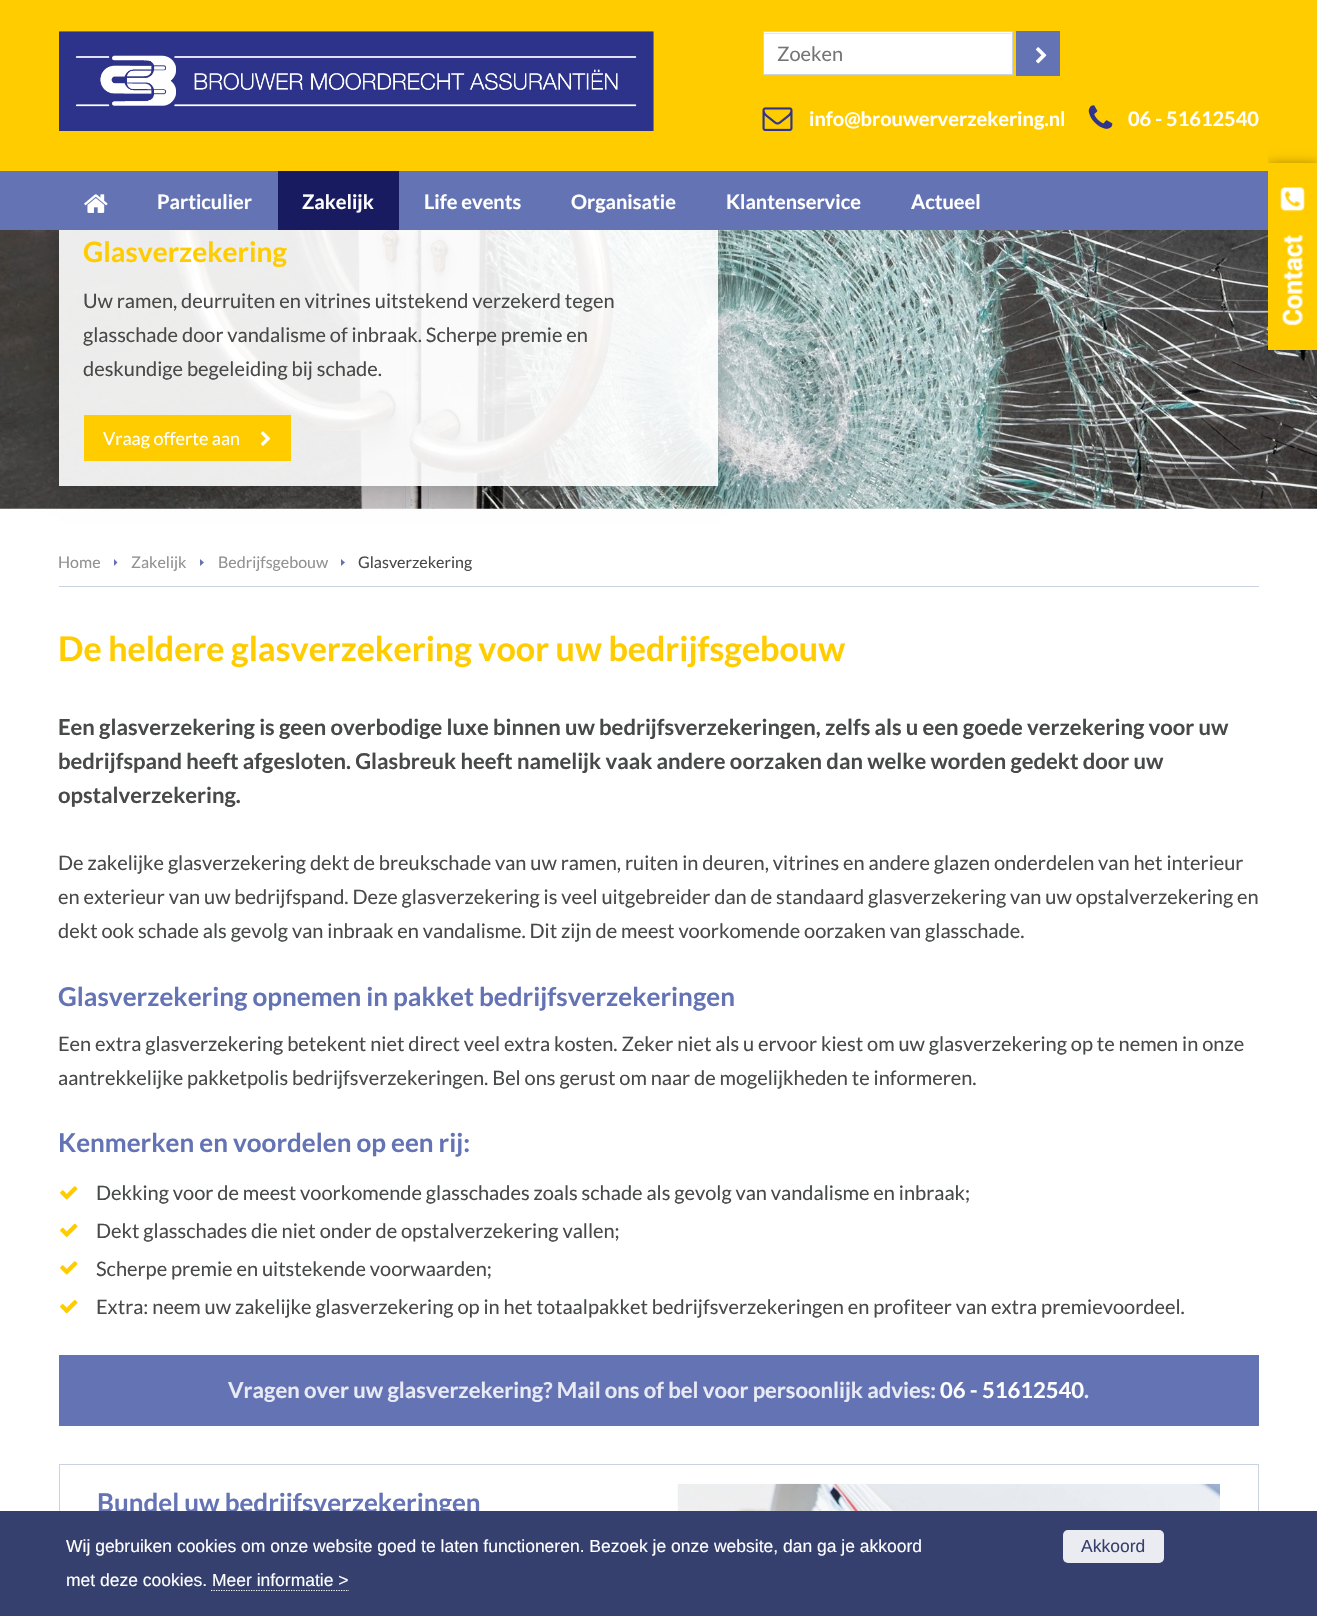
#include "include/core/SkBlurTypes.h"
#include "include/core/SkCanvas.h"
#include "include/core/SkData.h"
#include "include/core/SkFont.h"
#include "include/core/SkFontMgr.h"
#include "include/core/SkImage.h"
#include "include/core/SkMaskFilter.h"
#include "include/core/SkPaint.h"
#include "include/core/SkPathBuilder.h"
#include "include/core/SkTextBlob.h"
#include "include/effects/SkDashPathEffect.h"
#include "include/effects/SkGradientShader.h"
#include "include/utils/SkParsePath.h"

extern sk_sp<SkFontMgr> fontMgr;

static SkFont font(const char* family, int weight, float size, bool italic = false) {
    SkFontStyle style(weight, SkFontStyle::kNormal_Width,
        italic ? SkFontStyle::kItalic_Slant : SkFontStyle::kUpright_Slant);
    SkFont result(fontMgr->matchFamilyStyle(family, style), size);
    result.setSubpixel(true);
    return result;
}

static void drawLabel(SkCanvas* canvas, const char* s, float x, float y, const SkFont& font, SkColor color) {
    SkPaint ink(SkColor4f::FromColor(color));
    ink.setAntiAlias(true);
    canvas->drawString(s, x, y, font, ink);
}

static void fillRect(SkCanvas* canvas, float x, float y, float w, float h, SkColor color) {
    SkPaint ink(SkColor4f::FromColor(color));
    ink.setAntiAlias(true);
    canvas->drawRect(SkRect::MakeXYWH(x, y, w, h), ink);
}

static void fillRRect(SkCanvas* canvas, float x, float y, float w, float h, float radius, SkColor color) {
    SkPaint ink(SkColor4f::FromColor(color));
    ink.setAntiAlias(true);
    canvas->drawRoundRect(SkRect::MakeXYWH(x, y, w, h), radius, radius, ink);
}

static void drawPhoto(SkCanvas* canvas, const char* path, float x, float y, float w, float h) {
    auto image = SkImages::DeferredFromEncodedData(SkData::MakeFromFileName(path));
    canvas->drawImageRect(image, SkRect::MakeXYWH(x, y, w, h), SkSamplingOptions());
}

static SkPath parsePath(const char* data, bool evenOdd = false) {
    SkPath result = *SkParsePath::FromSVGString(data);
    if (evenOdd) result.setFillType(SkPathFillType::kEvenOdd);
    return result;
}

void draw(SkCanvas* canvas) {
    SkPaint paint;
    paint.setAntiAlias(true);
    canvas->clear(0xFFFFFFFF);
    drawPhoto(canvas, "assets/img6.png", 0, 230, 1317, 279);
    canvas->save();
    canvas->clipPath(parsePath("M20 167H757V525H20ZM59 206H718V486H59Z", true), true);
    paint.setColor(0x33000000);
    paint.setMaskFilter(SkMaskFilter::MakeBlur(kNormal_SkBlurStyle, 12.5f));
    canvas->drawRect(SkRect::MakeXYWH(59, 206, 659, 280), paint);
    paint.setMaskFilter(nullptr);
    canvas->restore();
    fillRect(canvas, 0, 0, 1317, 171, 0xFFFFCC00);
    drawPhoto(canvas, "assets/img1.png", 59, 31, 595, 100);
    fillRect(canvas, 764, 32, 248, 42, 0xFFFFFFFF);
    fillRect(canvas, 764, 33, 247, 1, 0xFFE6E6E6);
    paint.setStroke(true);
    paint.setStrokeWidth(1);
    paint.setColor(0xFFC9D3E2);
    canvas->drawRect(SkRect::MakeXYWH(763.5f, 31.5f, 249, 43), paint);
    SkFont font1 = font("Lato", 400, 20);
    drawLabel(canvas, "Zoeken", 777, 61, font1, 0xFF757575);
    fillRect(canvas, 1016, 31, 44, 45, 0xFF6473B4);
    drawPhoto(canvas, "assets/img2.png", 1036, 47, 11, 17);
    drawPhoto(canvas, "assets/img3.png", 762, 107, 31, 24);
    SkFont font2 = font("Lato", 700, 20);
    drawLabel(canvas, "info@brouwerverzekering.nl", 809, 126, font2, 0xFFFFFFFF);
    drawPhoto(canvas, "assets/img4.png", 1088, 105, 25, 24);
    drawLabel(canvas, "06 - 51612540", 1128, 126, font2, 0xFFFFFFFF);
    fillRect(canvas, 0, 171, 1268, 59, 0xFF6473B4);
    drawPhoto(canvas, "assets/img5.png", 84, 194, 24, 19);
    drawLabel(canvas, "Particulier", 157, 209, font2, 0xFFFFFFFF);
    fillRect(canvas, 278, 171, 121, 59, 0xFF181B60);
    drawLabel(canvas, "Zakelijk", 302, 209, font2, 0xFFFFFFFF);
    drawLabel(canvas, "Life events", 424, 209, font2, 0xFFFFFFFF);
    drawLabel(canvas, "Organisatie", 571, 209, font2, 0xFFFFFFFF);
    drawLabel(canvas, "Klantenservice", 726, 209, font2, 0xFFFFFFFF);
    drawLabel(canvas, "Actueel", 911, 209, font2, 0xFFFFFFFF);
    fillRect(canvas, 59, 230, 659, 256, 0xE6FFFFFF);
    SkFont font3 = font("Lato", 700, 28);
    drawLabel(canvas, "Glasverzekering", 83, 262, font3, 0xFFFFCC00);
    drawLabel(canvas, "Uw ramen, deurruiten en vitrines uitstekend verzekerd tegen", 83, 308, font1, 0xFF484949);
    drawLabel(canvas, "glasschade door vandalisme of inbraak. Scherpe premie en", 83, 342, font1, 0xFF484949);
    drawLabel(canvas, "deskundige begeleiding bij schade.", 83, 376, font1, 0xFF484949);
    fillRect(canvas, 84, 415, 207, 46, 0xFFFFCC00);
    SkFont font4 = font("Lato", 400, 18);
    drawLabel(canvas, "Vraag offerte aan", 103, 445, font4, 0xFFFFFFFF);
    drawPhoto(canvas, "assets/img7.png", 260, 431, 11, 15);
    canvas->save();
    canvas->clipRect(SkRect::MakeXYWH(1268, 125, 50, 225));
    paint.setStroke(false);
    paint.setColor(0x4D000000);
    paint.setMaskFilter(SkMaskFilter::MakeBlur(kNormal_SkBlurStyle, 5));
    canvas->drawRect(SkRect::MakeXYWH(1268, 163, 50, 187), paint);
    paint.setMaskFilter(nullptr);
    canvas->restore();
    fillRect(canvas, 1268, 163, 49, 187, 0xFFFFCC00);
    drawPhoto(canvas, "assets/img8.png", 1280, 187, 26, 139);
    fillRect(canvas, 59, 586, 1200, 1, 0xFFC9D3E2);
    SkFont font5 = font("Lato", 400, 16);
    drawLabel(canvas, "Home", 58, 568, font5, 0xFF919292);
    paint.setColor(0xFF6473B4);
    canvas->drawPath(parsePath("M114 566V559L117.5 562.5Z"), paint);
    drawLabel(canvas, "Zakelijk", 131, 568, font5, 0xFF919292);
    canvas->drawPath(parsePath("M200 566V559L204 562.5Z"), paint);
    drawLabel(canvas, "Bedrijfsgebouw", 218, 568, font5, 0xFF919292);
    canvas->drawPath(parsePath("M341 566V559L345 562.5Z"), paint);
    drawLabel(canvas, "Glasverzekering", 358, 568, font5, 0xFF484949);
    SkFont font6 = font("Lato", 700, 34);
    drawLabel(canvas, "De heldere glasverzekering voor uw bedrijfsgebouw", 58, 661, font6, 0xFFFFCC00);
    SkFont font7 = font("Lato", 700, 22);
    drawLabel(canvas, "Een glasverzekering is geen overbodige luxe binnen uw bedrijfsverzekeringen, zelfs als u een goede verzekering voor uw", 58, 735, font7, 0xFF484949);
    drawLabel(canvas, "bedrijfspand heeft afgesloten. Glasbreuk heeft namelijk vaak andere oorzaken dan welke worden gedekt door uw", 58, 769, font7, 0xFF484949);
    drawLabel(canvas, "opstalverzekering.", 58, 803, font7, 0xFF484949);
    drawLabel(canvas, "De zakelijke glasverzekering dekt de breukschade van uw ramen, ruiten in deuren, vitrines en andere glazen onderdelen van het interieur", 58, 870, font1, 0xFF484949);
    drawLabel(canvas, "en exterieur van uw bedrijfspand. Deze glasverzekering is veel uitgebreider dan de standaard glasverzekering van uw opstalverzekering en", 58, 904, font1, 0xFF484949);
    drawLabel(canvas, "dekt ook schade als gevolg van inbraak en vandalisme. Dit zijn de meest voorkomende oorzaken van glasschade.", 58, 938, font1, 0xFF484949);
    SkFont font8 = font("Lato", 700, 26);
    drawLabel(canvas, "Glasverzekering opnemen in pakket bedrijfsverzekeringen", 58, 1006, font8, 0xFF6473B4);
    drawLabel(canvas, "Een extra glasverzekering betekent niet direct veel extra kosten. Zeker niet als u ervoor kiest om uw glasverzekering op te nemen in onze", 58, 1051, font1, 0xFF484949);
    drawLabel(canvas, "aantrekkelijke pakketpolis bedrijfsverzekeringen. Bel ons gerust om naar de mogelijkheden te informeren.", 58, 1085, font1, 0xFF484949);
    drawLabel(canvas, "Kenmerken en voordelen op een rij:", 58, 1152, font8, 0xFF6473B4);
    drawPhoto(canvas, "assets/img9.png", 60, 1186, 18, 14);
    drawLabel(canvas, "Dekking voor de meest voorkomende glasschades zoals schade als gevolg van vandalisme en inbraak;", 96, 1200, font1, 0xFF484949);
    drawPhoto(canvas, "assets/img10.png", 60, 1223, 18, 14);
    drawLabel(canvas, "Dekt glasschades die niet onder de opstalverzekering vallen;", 96, 1238, font1, 0xFF484949);
    drawPhoto(canvas, "assets/img9.png", 60, 1261, 18, 14);
    drawLabel(canvas, "Scherpe premie en uitstekende voorwaarden;", 96, 1276, font1, 0xFF484949);
    drawPhoto(canvas, "assets/img11.png", 60, 1300, 18, 14);
    drawLabel(canvas, "Extra: neem uw zakelijke glasverzekering op in het totaalpakket bedrijfsverzekeringen en profiteer van extra premievoordeel.", 96, 1314, font1, 0xFF484949);
    fillRect(canvas, 59, 1355, 1200, 71, 0xFF6473B4);
    drawLabel(canvas, "Vragen over uw glasverzekering? Mail ons of bel voor persoonlijk advies:", 228, 1398, font7, 0xFFE8EAF4);
    drawLabel(canvas, "06 - 51612540", 940, 1398, font7, 0xFFFFFFFF);
    drawLabel(canvas, ".", 1084, 1398, font7, 0xFFE8EAF4);
    paint.setStroke(true);
    paint.setColor(0xFFC9D3E2);
    canvas->drawRect(SkRect::MakeXYWH(59.5f, 1464.5f, 1199, 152), paint);
    drawLabel(canvas, "Bundel uw bedrijfsverzekeringen", 97, 1512, font8, 0xFF6473B4);
    drawPhoto(canvas, "assets/img12.png", 677, 1483, 543, 28);
    fillRect(canvas, 0, 1511, 1317, 105, 0xFF36406E);
    SkFont font9 = font("Liberation Sans", 400, 17.5f);
    drawLabel(canvas, "Wij gebruiken cookies om onze website goed te laten functioneren. Bezoek je onze website, dan ga je akkoord", 66, 1552, font9, 0xFFFFFFFF);
    drawLabel(canvas, "met deze cookies. Meer informatie >", 66, 1586, font9, 0xFFFFFFFF);
    paint.setStrokeWidth(1.2f);
    paint.setColor(0xFFFFFFFF);
    paint.setPathEffect(SkDashPathEffect::Make({{1.25f, 1.25f}}, 0));
    canvas->drawPath(parsePath("M211 1590.5H349"), paint);
    paint.setPathEffect(nullptr);
    fillRRect(canvas, 1063, 1530, 101, 33, 5, 0xFFEBECF1);
    drawLabel(canvas, "Akkoord", 1081, 1552, font9, 0xFF36406E);
}
